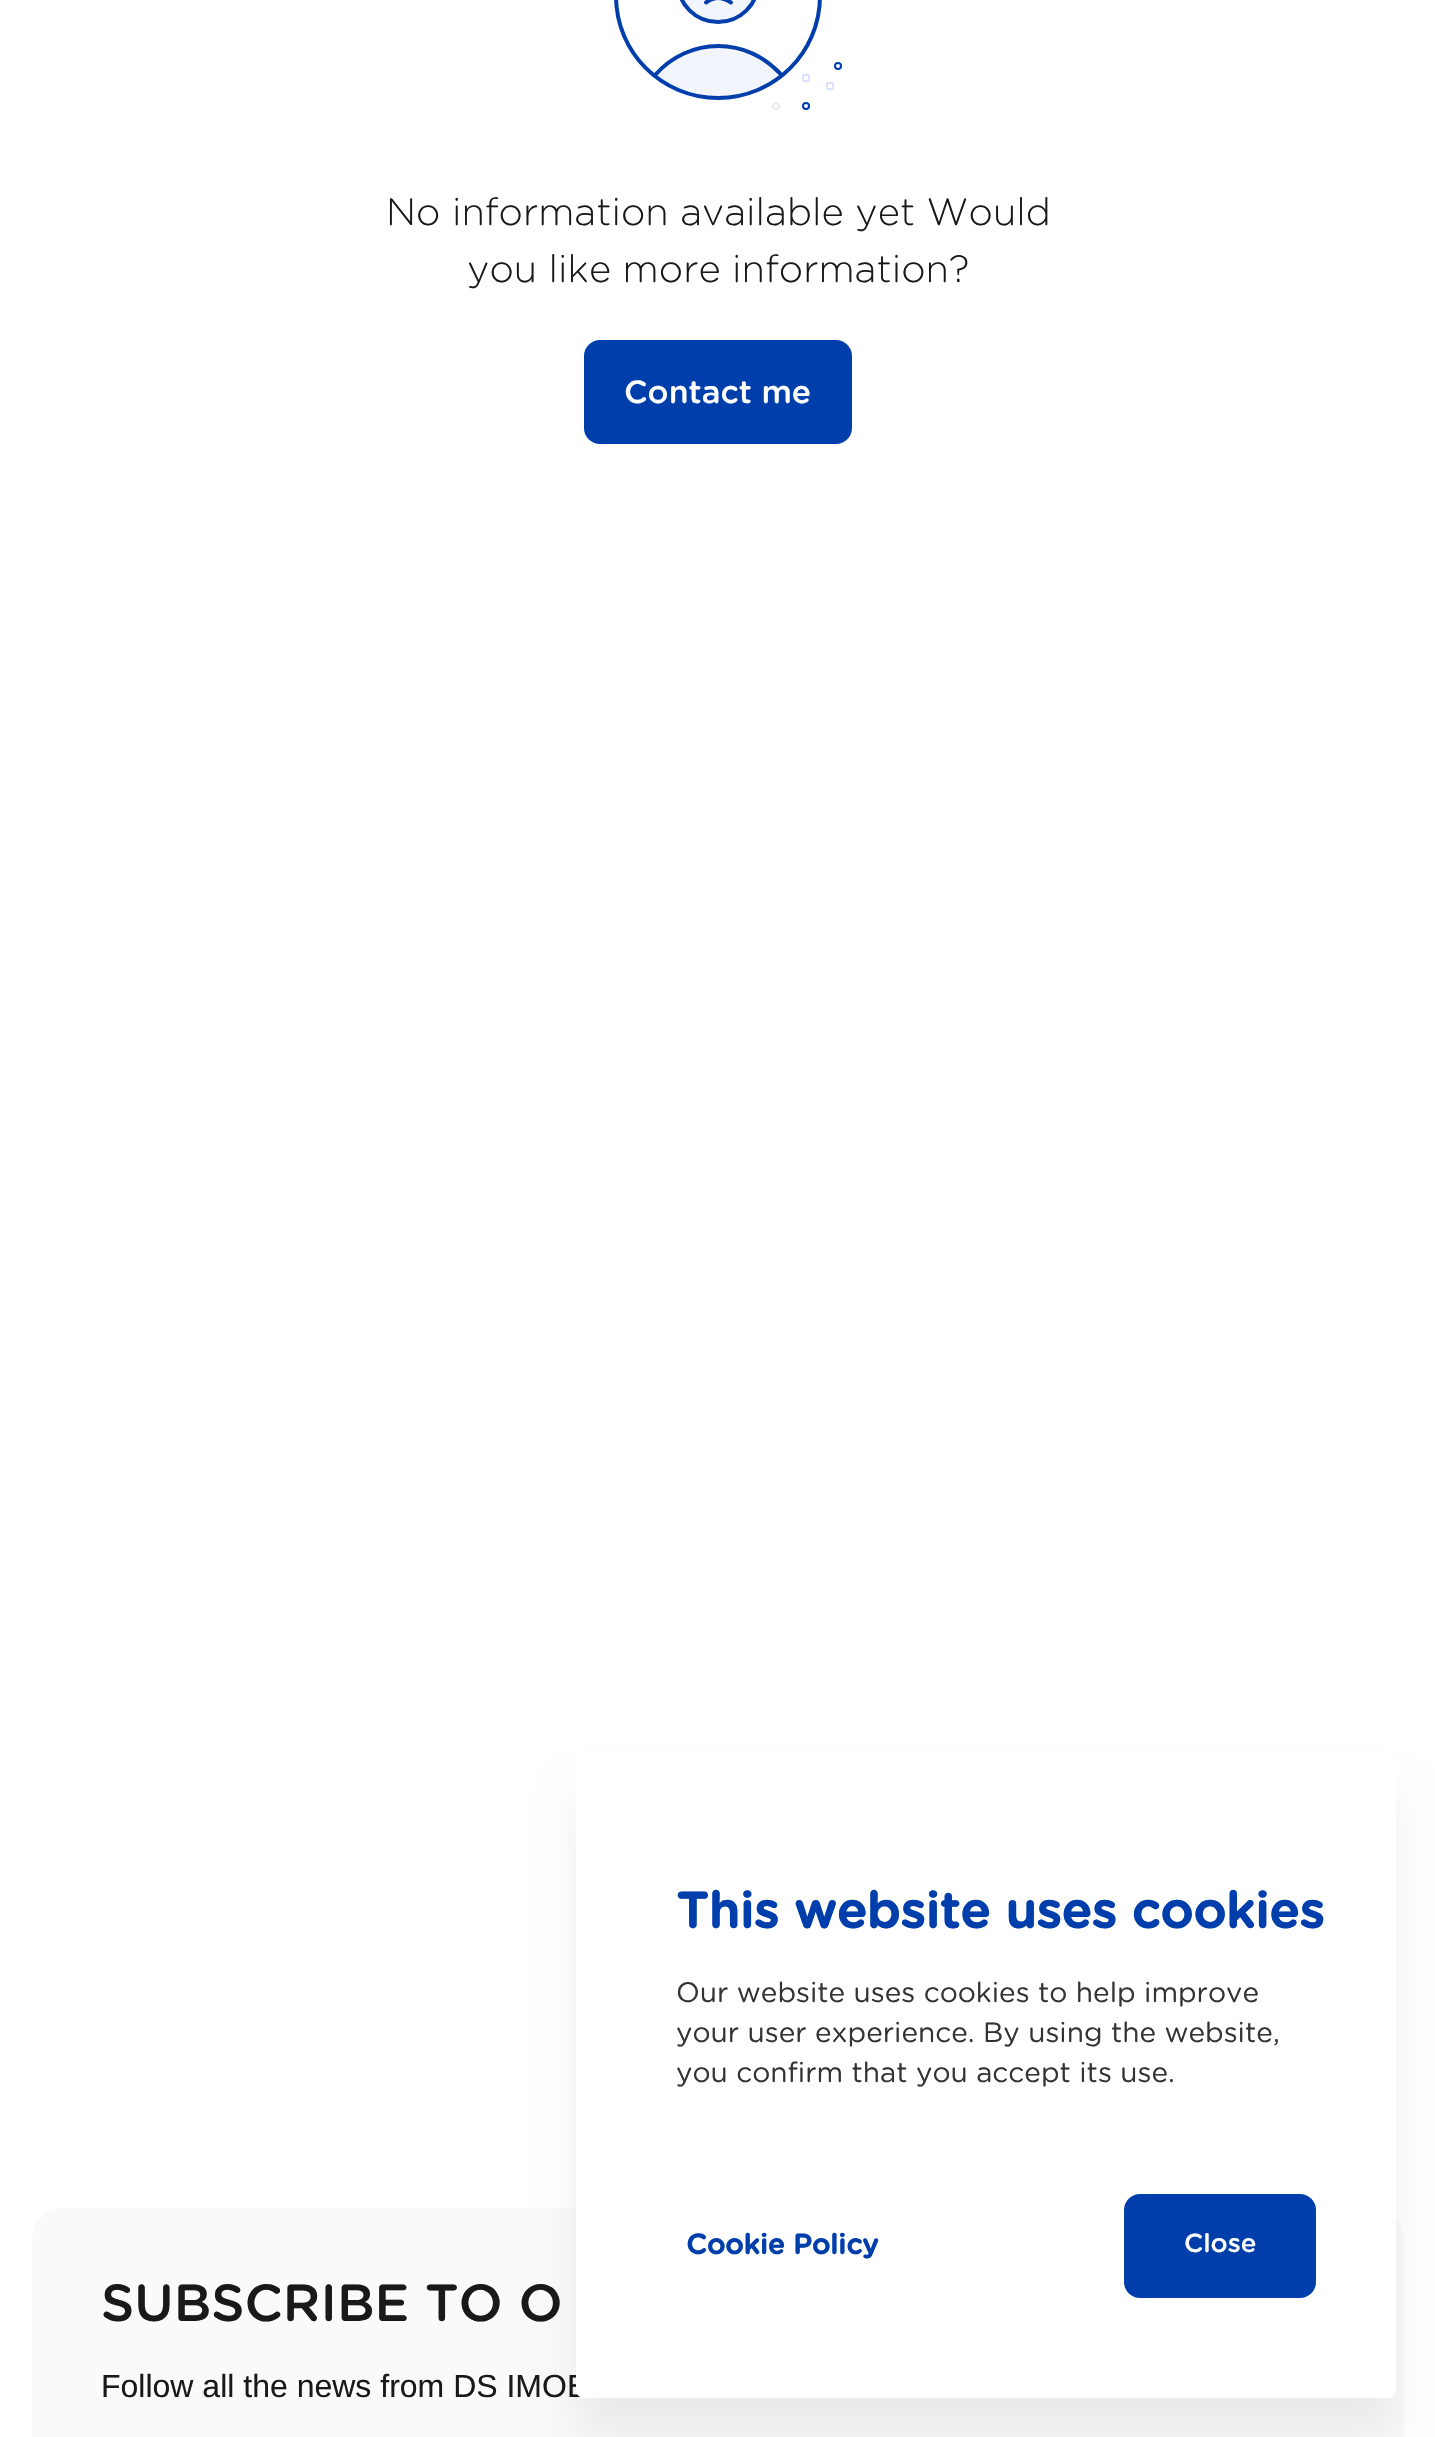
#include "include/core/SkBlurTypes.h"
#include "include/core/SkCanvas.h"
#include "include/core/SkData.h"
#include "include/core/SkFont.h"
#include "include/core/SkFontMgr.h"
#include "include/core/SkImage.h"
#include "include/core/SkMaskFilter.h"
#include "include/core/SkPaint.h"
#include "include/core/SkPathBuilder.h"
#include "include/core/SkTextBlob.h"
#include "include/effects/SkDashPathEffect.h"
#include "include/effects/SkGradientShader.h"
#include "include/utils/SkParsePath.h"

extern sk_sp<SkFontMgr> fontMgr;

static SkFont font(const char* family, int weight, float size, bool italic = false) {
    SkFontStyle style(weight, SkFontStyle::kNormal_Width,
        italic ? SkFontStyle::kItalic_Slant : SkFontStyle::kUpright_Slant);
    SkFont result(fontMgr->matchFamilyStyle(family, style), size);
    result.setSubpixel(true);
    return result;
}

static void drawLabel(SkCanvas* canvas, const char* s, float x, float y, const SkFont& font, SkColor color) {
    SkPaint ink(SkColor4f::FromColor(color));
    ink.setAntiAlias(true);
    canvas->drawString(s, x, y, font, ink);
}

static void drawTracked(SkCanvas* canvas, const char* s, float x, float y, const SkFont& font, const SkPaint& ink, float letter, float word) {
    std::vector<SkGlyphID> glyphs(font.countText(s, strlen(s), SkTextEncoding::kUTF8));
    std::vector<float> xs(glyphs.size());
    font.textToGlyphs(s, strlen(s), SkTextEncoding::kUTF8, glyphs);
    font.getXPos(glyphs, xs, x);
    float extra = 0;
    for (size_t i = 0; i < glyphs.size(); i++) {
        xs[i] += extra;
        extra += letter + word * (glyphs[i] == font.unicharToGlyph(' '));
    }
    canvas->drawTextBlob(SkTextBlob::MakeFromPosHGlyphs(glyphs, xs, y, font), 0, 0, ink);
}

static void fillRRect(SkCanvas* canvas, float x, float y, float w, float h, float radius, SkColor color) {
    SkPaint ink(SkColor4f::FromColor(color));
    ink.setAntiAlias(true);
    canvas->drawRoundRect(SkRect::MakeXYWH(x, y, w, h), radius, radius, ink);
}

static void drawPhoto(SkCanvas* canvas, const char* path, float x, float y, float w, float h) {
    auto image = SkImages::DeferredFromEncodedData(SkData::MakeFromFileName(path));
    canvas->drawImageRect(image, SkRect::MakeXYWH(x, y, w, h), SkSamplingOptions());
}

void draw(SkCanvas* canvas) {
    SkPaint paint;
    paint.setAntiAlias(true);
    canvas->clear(0xFFFFFFFF);
    drawPhoto(canvas, "assets/img1.png", 614, 0, 228, 110);
    SkFont font1 = font("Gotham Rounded", 300, 38);
    paint.setColor(0xFF191919);
    drawTracked(canvas, "No information available yet Would", 386, 225, font1, paint, 0.05f, 0);
    drawTracked(canvas, "you like more information?", 467, 282, font1, paint, 0.05f, 0);
    fillRRect(canvas, 584, 340, 268, 104, 16, 0xFF003EAB);
    SkFont font2 = font("Gotham Rounded", 500, 32);
    drawLabel(canvas, "Contact me", 624, 403, font2, 0xFFFFFFFF);
    fillRRect(canvas, 32, 2208, 1372, 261, 32, 0xFFFAFAFA);
    SkFont font3 = font("Gotham Rounded", 500, 52);
    drawLabel(canvas, "SUBSCRIBE TO O", 101, 2321, font3, 0xFF191919);
    SkFont font4 = font("Liberation Sans", 400, 32);
    drawLabel(canvas, "Follow all the news from DS IMOB", 101, 2397, font4, 0xFF191919);
    paint.setColor(0x0F000000);
    paint.setMaskFilter(SkMaskFilter::MakeBlur(kNormal_SkBlurStyle, 20));
    canvas->drawRoundRect(SkRect::MakeXYWH(576, 1794, 820, 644), 8, 8, paint);
    paint.setMaskFilter(nullptr);
    fillRRect(canvas, 576, 1754, 820, 644, 8, 0xFFFFFFFF);
    SkFont font5 = font("Gotham Rounded", 700, 50);
    drawLabel(canvas, "This website uses cookies", 676, 1928, font5, 0xFF003EAB);
    SkFont font6 = font("Gotham Rounded", 400, 28);
    drawLabel(canvas, "Our website uses cookies to help improve", 676, 2002, font6, 0xFF333333);
    drawLabel(canvas, "your user experience. By using the website,", 676, 2042, font6, 0xFF333333);
    drawLabel(canvas, "you confirm that you accept its use.", 676, 2082, font6, 0xFF333333);
    SkFont font7 = font("Gotham Rounded", 700, 28);
    drawLabel(canvas, "Cookie Policy", 686, 2254, font7, 0xFF003EAB);
    fillRRect(canvas, 1124, 2194, 192, 104, 16, 0xFF003EAB);
    SkFont font8 = font("Gotham Rounded", 500, 26);
    drawLabel(canvas, "Close", 1184, 2252, font8, 0xFFFFFFFF);
}
